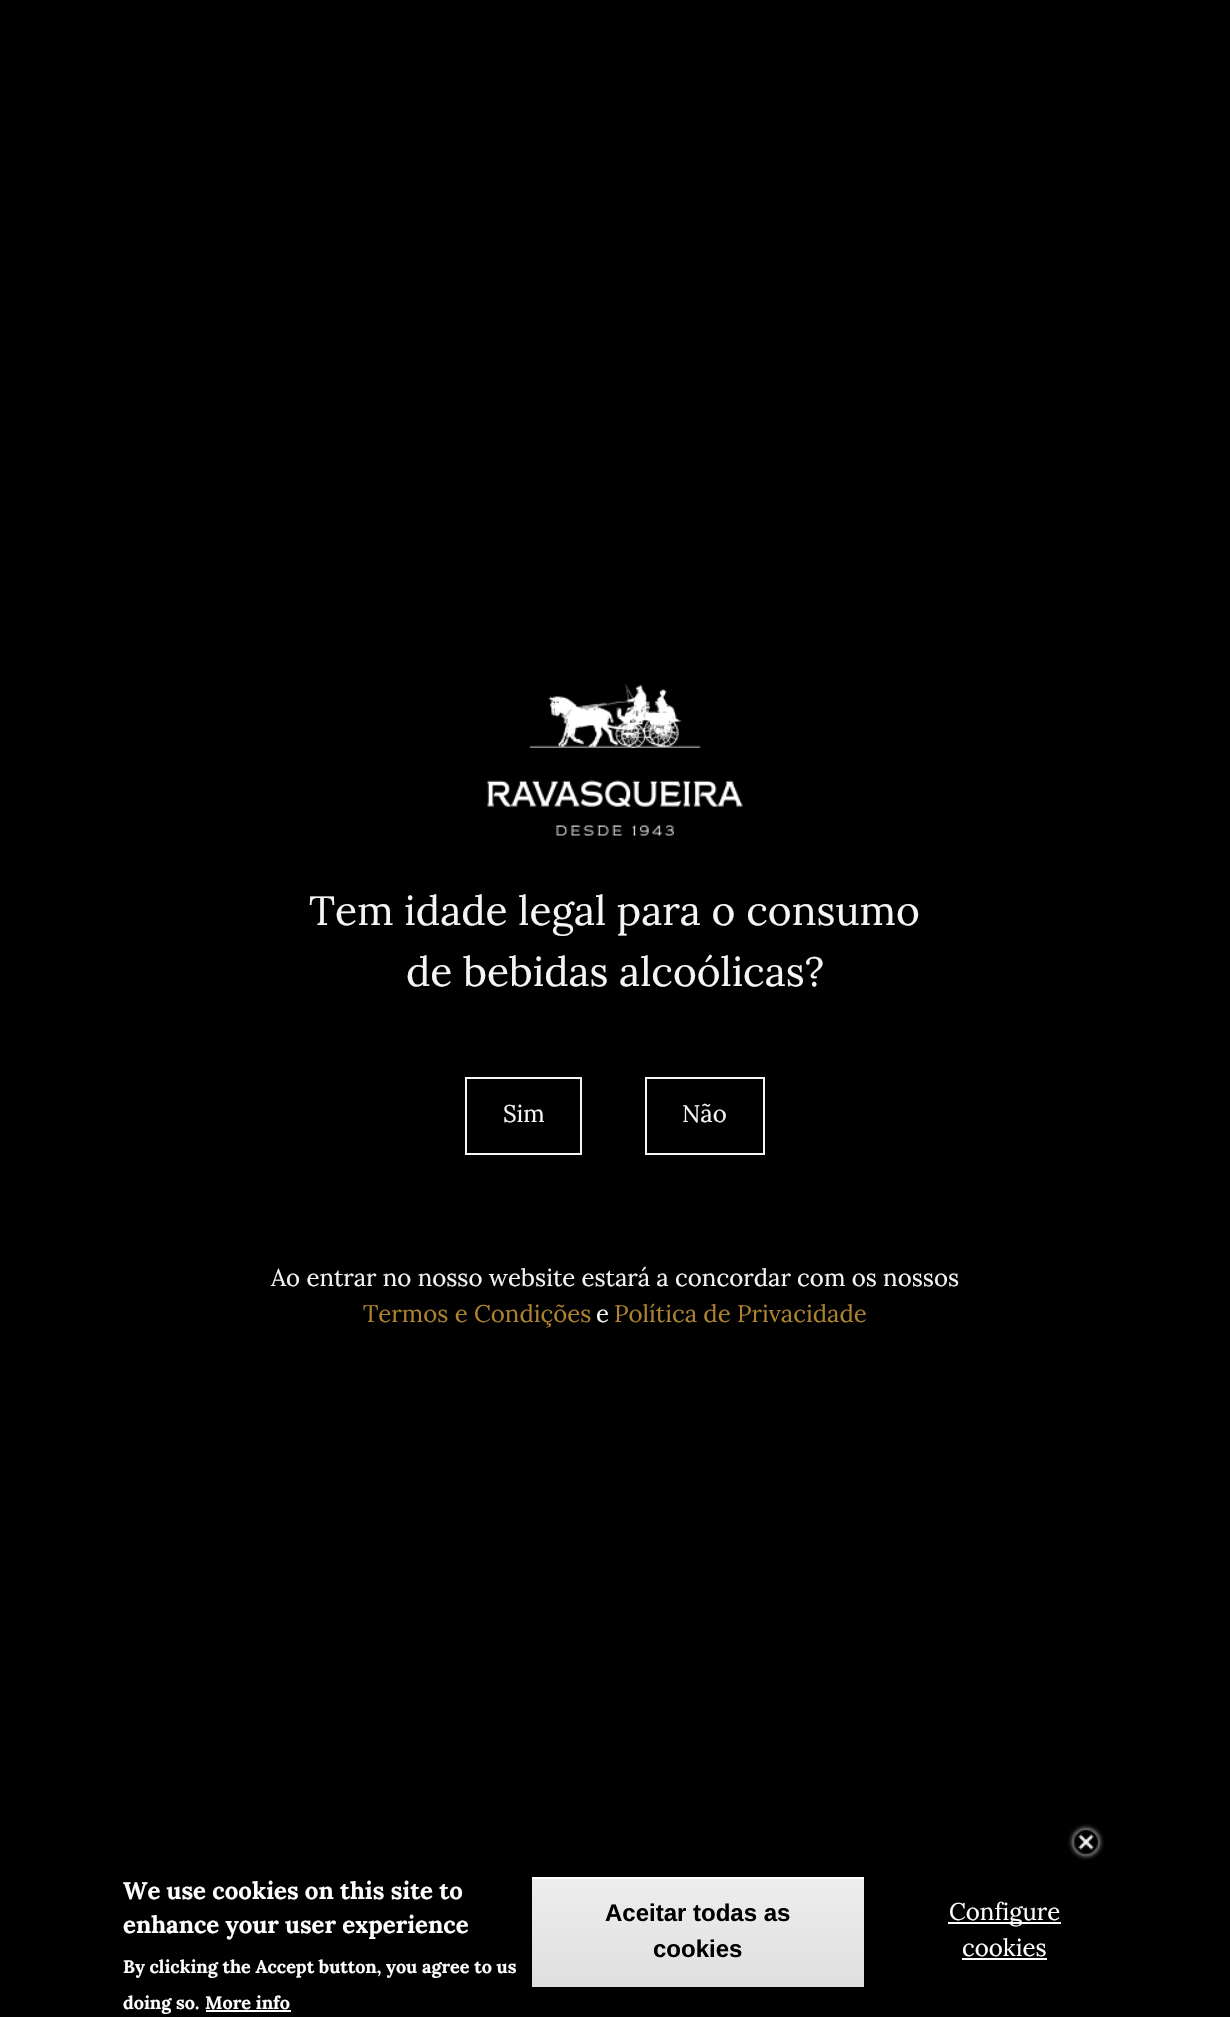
#include "include/core/SkBlurTypes.h"
#include "include/core/SkCanvas.h"
#include "include/core/SkData.h"
#include "include/core/SkFont.h"
#include "include/core/SkFontMgr.h"
#include "include/core/SkImage.h"
#include "include/core/SkMaskFilter.h"
#include "include/core/SkPaint.h"
#include "include/core/SkPathBuilder.h"
#include "include/core/SkTextBlob.h"
#include "include/effects/SkDashPathEffect.h"
#include "include/effects/SkGradientShader.h"
#include "include/utils/SkParsePath.h"

extern sk_sp<SkFontMgr> fontMgr;

static SkFont font(const char* family, int weight, float size, bool italic = false) {
    SkFontStyle style(weight, SkFontStyle::kNormal_Width,
        italic ? SkFontStyle::kItalic_Slant : SkFontStyle::kUpright_Slant);
    SkFont result(fontMgr->matchFamilyStyle(family, style), size);
    result.setSubpixel(true);
    return result;
}

static void drawLabel(SkCanvas* canvas, const char* s, float x, float y, const SkFont& font, SkColor color) {
    SkPaint ink(SkColor4f::FromColor(color));
    ink.setAntiAlias(true);
    canvas->drawString(s, x, y, font, ink);
}

static void fillRect(SkCanvas* canvas, float x, float y, float w, float h, SkColor color) {
    SkPaint ink(SkColor4f::FromColor(color));
    ink.setAntiAlias(true);
    canvas->drawRect(SkRect::MakeXYWH(x, y, w, h), ink);
}

static void drawPhoto(SkCanvas* canvas, const char* path, float x, float y, float w, float h) {
    auto image = SkImages::DeferredFromEncodedData(SkData::MakeFromFileName(path));
    canvas->drawImageRect(image, SkRect::MakeXYWH(x, y, w, h), SkSamplingOptions());
}

void draw(SkCanvas* canvas) {
    SkPaint paint;
    paint.setAntiAlias(true);
    canvas->clear(0xFF000000);
    drawPhoto(canvas, "assets/img1.png", 487, 684, 256, 152);
    SkFont font1 = font("Lora", 400, 40.75f);
    drawLabel(canvas, "Tem idade legal para o consumo", 309, 925, font1, 0xFFF5F5F5);
    drawLabel(canvas, "de bebidas alcoólicas?", 406, 986, font1, 0xFFF5F5F5);
    paint.setStroke(true);
    paint.setStrokeWidth(2);
    paint.setColor(0xFFF5F5F5);
    canvas->drawRect(SkRect::MakeXYWH(466, 1078, 115, 76), paint);
    SkFont font2 = font("Lora", 400, 24);
    drawLabel(canvas, "Sim", 503, 1122, font2, 0xFFF5F5F5);
    canvas->drawRect(SkRect::MakeXYWH(646, 1078, 118, 76), paint);
    drawLabel(canvas, "Não", 682, 1122, font2, 0xFFF5F5F5);
    drawLabel(canvas, "Ao entrar no nosso website estará a concordar com os nossos", 271, 1286, font2, 0xFFF5F5F5);
    drawLabel(canvas, "Termos e Condições", 363, 1322, font2, 0xFFAD8330);
    drawLabel(canvas, "e", 596, 1322, font2, 0xFFF5F5F5);
    drawLabel(canvas, "Política de Privacidade", 614, 1322, font2, 0xFFAD8330);
    drawPhoto(canvas, "assets/img2.png", 1068, 1824, 36, 36);
    SkFont font3 = font("Lora", 700, 24);
    drawLabel(canvas, "We use cookies on this site to", 123, 1899, font3, 0xFFFFFFFF);
    drawLabel(canvas, "enhance your user experience", 123, 1933, font3, 0xFFFFFFFF);
    SkFont font4 = font("Lora", 700, 18);
    drawLabel(canvas, "By clicking the Accept button, you agree to us", 123, 1973, font4, 0xFFFFFFFF);
    drawLabel(canvas, "doing so.", 123, 2009, font4, 0xFFFFFFFF);
    drawLabel(canvas, "More info", 205, 2009, font4, 0xFFFFFFFF);
    fillRect(canvas, 206, 2010, 85, 2, 0xFFFFFFFF);
    paint.setStroke(false);
    {
        const SkColor colors[] = {0xFFEDEDED, 0xFFDFDFDF};
        const float stops[] = {0.05f, 1};
        const SkPoint ends[] = {{698, 1877}, {698, 1988}};
        paint.setShader(SkGradientShader::MakeLinear(ends, colors, stops, 2, SkTileMode::kClamp));
        paint.setAlpha(255);
    }
    canvas->drawRect(SkRect::MakeXYWH(532, 1879, 332, 108), paint);
    fillRect(canvas, 531, 1877, 333, 2, 0xFFFFFFFF);
    paint.setStroke(true);
    paint.setShader(nullptr);
    paint.setColor(0xFF000000);
    canvas->drawRect(SkRect::MakeXYWH(531, 1876, 334, 112), paint);
    SkFont font5 = font("Liberation Sans", 700, 24);
    drawLabel(canvas, "Aceitar todas as", 605, 1921, font5, 0xFF000000);
    drawLabel(canvas, "cookies", 653, 1957, font5, 0xFF000000);
    fillRect(canvas, 948, 1922, 113, 2, 0xFFFFFFFF);
    drawLabel(canvas, "Configure", 949, 1920, font2, 0xFFFFFFFF);
    drawLabel(canvas, "cookies", 962, 1956, font2, 0xFFFFFFFF);
    fillRect(canvas, 962, 1958, 85, 2, 0xFFFFFFFF);
}
